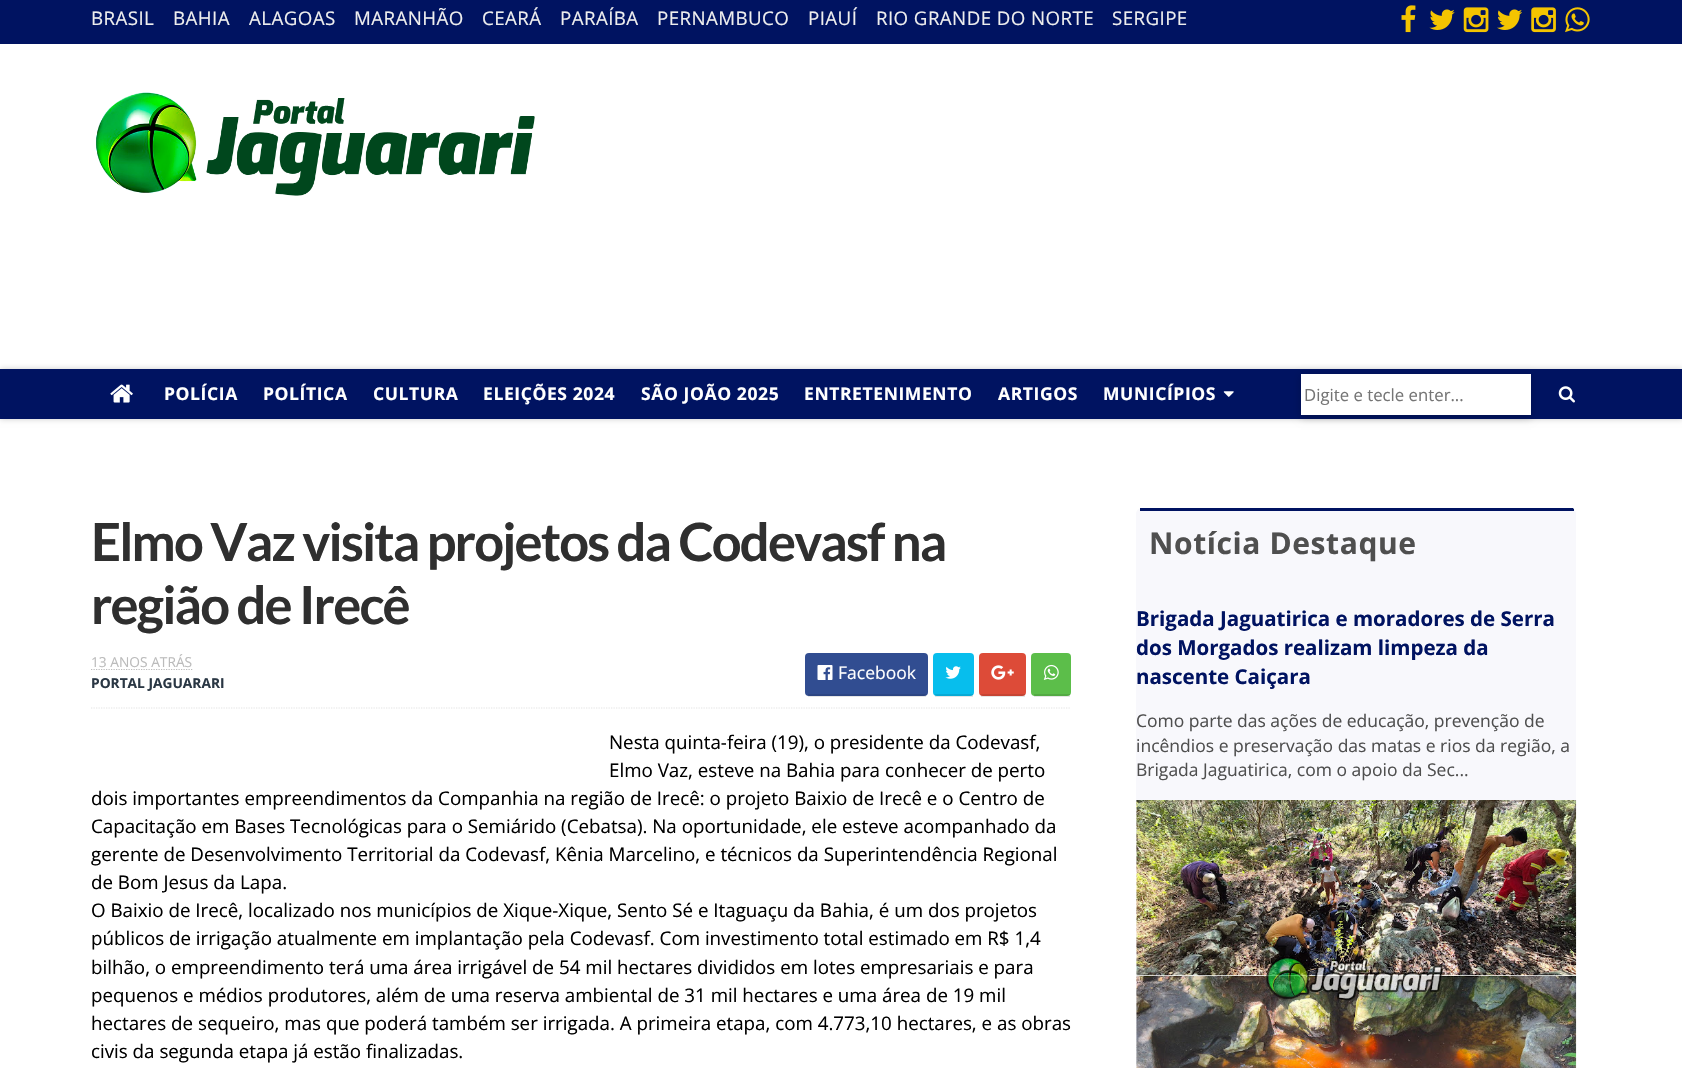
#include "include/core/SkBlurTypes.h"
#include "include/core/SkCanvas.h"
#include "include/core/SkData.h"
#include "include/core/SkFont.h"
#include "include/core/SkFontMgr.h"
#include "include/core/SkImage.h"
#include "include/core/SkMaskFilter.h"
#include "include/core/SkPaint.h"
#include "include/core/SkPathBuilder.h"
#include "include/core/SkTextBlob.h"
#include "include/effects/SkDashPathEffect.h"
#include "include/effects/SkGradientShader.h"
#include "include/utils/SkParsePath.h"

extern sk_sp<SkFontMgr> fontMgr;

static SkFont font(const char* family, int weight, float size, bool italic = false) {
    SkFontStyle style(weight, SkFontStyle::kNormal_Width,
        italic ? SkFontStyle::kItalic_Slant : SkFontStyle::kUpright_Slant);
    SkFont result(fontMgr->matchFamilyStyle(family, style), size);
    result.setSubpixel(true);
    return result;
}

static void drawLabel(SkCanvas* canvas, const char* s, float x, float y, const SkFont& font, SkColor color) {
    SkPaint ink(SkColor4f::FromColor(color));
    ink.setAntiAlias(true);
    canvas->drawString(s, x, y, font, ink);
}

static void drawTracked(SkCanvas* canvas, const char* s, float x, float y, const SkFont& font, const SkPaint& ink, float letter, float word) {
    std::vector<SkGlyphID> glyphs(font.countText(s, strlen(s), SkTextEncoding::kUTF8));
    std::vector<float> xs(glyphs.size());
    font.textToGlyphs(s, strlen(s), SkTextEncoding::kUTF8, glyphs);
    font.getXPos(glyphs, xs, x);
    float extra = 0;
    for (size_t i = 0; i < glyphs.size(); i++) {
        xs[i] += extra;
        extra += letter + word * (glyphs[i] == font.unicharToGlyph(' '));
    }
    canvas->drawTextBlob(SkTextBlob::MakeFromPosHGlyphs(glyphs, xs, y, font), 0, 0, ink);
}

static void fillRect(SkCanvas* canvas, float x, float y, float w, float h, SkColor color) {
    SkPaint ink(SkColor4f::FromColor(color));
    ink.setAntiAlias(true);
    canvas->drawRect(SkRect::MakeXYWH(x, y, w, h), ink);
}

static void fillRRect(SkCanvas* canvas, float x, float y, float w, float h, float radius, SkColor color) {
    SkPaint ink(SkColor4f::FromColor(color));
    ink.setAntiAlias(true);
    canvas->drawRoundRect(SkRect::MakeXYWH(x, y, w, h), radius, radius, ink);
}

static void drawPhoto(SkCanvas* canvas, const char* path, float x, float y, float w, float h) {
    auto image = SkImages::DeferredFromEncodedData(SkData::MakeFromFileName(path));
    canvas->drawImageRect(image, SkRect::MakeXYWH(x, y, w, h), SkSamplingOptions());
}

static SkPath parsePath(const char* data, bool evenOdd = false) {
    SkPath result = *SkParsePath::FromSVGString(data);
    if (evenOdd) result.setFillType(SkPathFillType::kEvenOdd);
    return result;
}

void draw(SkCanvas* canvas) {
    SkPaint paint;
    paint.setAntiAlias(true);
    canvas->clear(0xFFFFFFFF);
    fillRect(canvas, 0, 0, 1682, 44, 0xFF001361);
    SkFont font1 = font("Open Sans", 400, 18.75f);
    paint.setColor(0xFFEEEEEE);
    drawTracked(canvas, "BRASIL", 91, 25, font1, paint, 0.4f, 0);
    drawTracked(canvas, "BAHIA", 173, 25, font1, paint, 0.4f, 0);
    drawTracked(canvas, "ALAGOAS", 249, 25, font1, paint, 0.4f, 0);
    drawTracked(canvas, "MARANHÃO", 354, 25, font1, paint, 0.4f, 0);
    drawTracked(canvas, "CEARÁ", 482, 25, font1, paint, 0.4f, 0);
    drawTracked(canvas, "PARAÍBA", 560, 25, font1, paint, 0.4f, 0);
    drawTracked(canvas, "PERNAMBUCO", 657, 25, font1, paint, 0.4f, 0);
    drawTracked(canvas, "PIAUÍ", 808, 25, font1, paint, 0.4f, 0);
    drawTracked(canvas, "RIO GRANDE DO NORTE", 876, 25, font1, paint, 0.4f, 0);
    drawTracked(canvas, "SERGIPE", 1112, 25, font1, paint, 0.4f, 0);
    drawPhoto(canvas, "assets/img1.png", 1401, 5, 15, 28);
    drawPhoto(canvas, "assets/img2.png", 1429, 9, 26, 21);
    drawPhoto(canvas, "assets/img3.png", 1463, 7, 26, 26);
    drawPhoto(canvas, "assets/img4.png", 1497, 9, 25, 21);
    drawPhoto(canvas, "assets/img5.png", 1531, 7, 25, 26);
    drawPhoto(canvas, "assets/img6.png", 1565, 7, 25, 26);
    drawPhoto(canvas, "assets/img7.png", 95, 92, 440, 104);
    paint.setColor(0x33000000);
    paint.setMaskFilter(SkMaskFilter::MakeBlur(kNormal_SkBlurStyle, 3));
    canvas->drawRect(SkRect::MakeXYWH(0, 369, 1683, 50), paint);
    paint.setMaskFilter(nullptr);
    fillRect(canvas, 0, 369, 1682, 50, 0xFF001361);
    drawPhoto(canvas, "assets/img8.png", 110, 384, 23, 19);
    SkFont font2 = font("Open Sans", 700, 17.5f);
    paint.setColor(0xFFFFFFFF);
    drawTracked(canvas, "POLÍCIA", 164, 400, font2, paint, 0.6f, 0);
    drawTracked(canvas, "POLÍTICA", 263, 400, font2, paint, 0.6f, 0);
    drawTracked(canvas, "CULTURA", 373, 400, font2, paint, 0.6f, 0);
    drawTracked(canvas, "ELEIÇÕES 2024", 483, 400, font2, paint, 0.6f, 0);
    drawTracked(canvas, "SÃO JOÃO 2025", 641, 400, font2, paint, 0.6f, 0);
    drawTracked(canvas, "ENTRETENIMENTO", 804, 400, font2, paint, 0.6f, 0);
    drawTracked(canvas, "ARTIGOS", 998, 400, font2, paint, 0.6f, 0);
    drawTracked(canvas, "MUNICÍPIOS", 1103, 400, font2, paint, 0.6f, 0);
    drawPhoto(canvas, "assets/img9.png", 1223, 391, 11, 6);
    paint.setColor(0x33000000);
    paint.setMaskFilter(SkMaskFilter::MakeBlur(kNormal_SkBlurStyle, 4));
    canvas->drawRect(SkRect::MakeXYWH(1301, 376, 230, 42), paint);
    paint.setMaskFilter(nullptr);
    fillRect(canvas, 1301, 374, 230, 41, 0xFFFFFFFF);
    SkFont font3 = font("Open Sans", 400, 16.75f);
    drawLabel(canvas, "Digite e tecle enter...", 1304, 401, font3, 0xFF757575);
    drawPhoto(canvas, "assets/img10.png", 1558, 386, 17, 17);
    SkFont font4 = font("Lato", 700, 52.5f);
    paint.setColor(0xFF2F2F2F);
    drawTracked(canvas, "Elmo Vaz visita projetos da Codevasf na", 91, 561, font4, paint, -1.85f, 0);
    drawTracked(canvas, "região de Irecê", 91, 624, font4, paint, -1.85f, 0);
    paint.setStroke(true);
    paint.setStrokeWidth(1.2f);
    paint.setColor(0xFFE4E4E4);
    paint.setPathEffect(SkDashPathEffect::Make({{1.25f, 1.25f}}, 0));
    canvas->drawPath(parsePath("M91 708H1071"), paint);
    paint.setPathEffect(nullptr);
    SkFont font5 = font("Open Sans", 400, 13.75f);
    drawLabel(canvas, "13 ANOS ATRÁS", 91, 667, font5, 0xFFBBBBBB);
    paint.setColor(0xFFBBBBBB);
    paint.setPathEffect(SkDashPathEffect::Make({{1.25f, 1.25f}}, 0));
    canvas->drawPath(parsePath("M91 669.5H192.5"), paint);
    paint.setPathEffect(nullptr);
    SkFont font6 = font("Open Sans", 700, 13.75f);
    drawLabel(canvas, "PORTAL JAGUARARI", 91, 688, font6, 0xFF2A3744);
    fillRRect(canvas, 805, 653, 123, 43, 4, 0xFF314D91);
    fillRect(canvas, 808, 694, 118, 3, 0x1A000000);
    drawPhoto(canvas, "assets/img11.png", 817, 665, 16, 15);
    SkFont font7 = font("Open Sans", 400, 17.5f);
    drawLabel(canvas, "Facebook", 838, 679, font7, 0xFFFFFFFF);
    fillRRect(canvas, 933, 653, 41, 43, 4, 0xFF07BEED);
    fillRect(canvas, 935, 694, 38, 3, 0x1A000000);
    drawPhoto(canvas, "assets/img12.png", 945, 666, 16, 13);
    fillRRect(canvas, 979, 653, 47, 43, 4, 0xFFDD4B38);
    fillRect(canvas, 981, 694, 44, 3, 0x1A000000);
    drawPhoto(canvas, "assets/img13.png", 991, 665, 23, 15);
    fillRRect(canvas, 1031, 653, 40, 43, 4, 0xFF5CBE4A);
    fillRect(canvas, 1034, 694, 36, 3, 0x1A000000);
    drawPhoto(canvas, "assets/img14.png", 1043, 664, 16, 16);
    drawLabel(canvas, "Nesta quinta-feira (19), o presidente da Codevasf,", 609, 749, font1, 0xFF000000);
    drawLabel(canvas, "Elmo Vaz, esteve na Bahia para conhecer de perto", 609, 777, font1, 0xFF000000);
    drawLabel(canvas, "dois importantes empreendimentos da Companhia na região de Irecê: o projeto Baixio de Irecê e o Centro de", 91, 805, font1, 0xFF000000);
    drawLabel(canvas, "Capacitação em Bases Tecnológicas para o Semiárido (Cebatsa). Na oportunidade, ele esteve acompanhado da", 91, 833, font1, 0xFF000000);
    drawLabel(canvas, "gerente de Desenvolvimento Territorial da Codevasf, Kênia Marcelino, e técnicos da Superintendência Regional", 91, 861, font1, 0xFF000000);
    drawLabel(canvas, "de Bom Jesus da Lapa.", 91, 889, font1, 0xFF000000);
    drawLabel(canvas, "O Baixio de Irecê, localizado nos municípios de Xique-Xique, Sento Sé e Itaguaçu da Bahia, é um dos projetos", 91, 917, font1, 0xFF000000);
    drawLabel(canvas, "públicos de irrigação atualmente em implantação pela Codevasf. Com investimento total estimado em R$ 1,4", 91, 945, font1, 0xFF000000);
    drawLabel(canvas, "bilhão, o empreendimento terá uma área irrigável de 54 mil hectares divididos em lotes empresariais e para", 91, 974, font1, 0xFF000000);
    drawLabel(canvas, "pequenos e médios produtores, além de uma reserva ambiental de 31 mil hectares e uma área de 19 mil", 91, 1002, font1, 0xFF000000);
    drawLabel(canvas, "hectares de sequeiro, mas que poderá também ser irrigada. A primeira etapa, com 4.773,10 hectares, e as obras", 91, 1030, font1, 0xFF000000);
    drawLabel(canvas, "civis da segunda etapa já estão finalizadas.", 91, 1058, font1, 0xFF000000);
    fillRRect(canvas, 1136, 508, 440, 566, 6, 0xFFF8F8FC);
    canvas->save();
    canvas->clipRect(SkRect::MakeXYWH(1121, 508, 470, 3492));
    paint.setStroke(false);
    paint.setColor(0xFF001361);
    canvas->drawPath(parsePath("M1140 508H1500C1525 508 1555 493 1574 509V511H1140Z"), paint);
    canvas->restore();
    SkFont font8 = font("Open Sans", 700, 30);
    paint.setColor(0xFF4F4F4F);
    drawTracked(canvas, "Notícia Destaque", 1149, 554, font8, paint, 0.6f, 0);
    SkFont font9 = font("Open Sans", 700, 20.5f);
    drawLabel(canvas, "Brigada Jaguatirica e moradores de Serra", 1136, 626, font9, 0xFF001361);
    drawLabel(canvas, "dos Morgados realizam limpeza da", 1136, 655, font9, 0xFF001361);
    drawLabel(canvas, "nascente Caiçara", 1136, 684, font9, 0xFF001361);
    drawLabel(canvas, "Como parte das ações de educação, prevenção de", 1136, 727, font7, 0xFF4F4F4F);
    drawLabel(canvas, "incêndios e preservação das matas e rios da região, a", 1136, 752, font7, 0xFF4F4F4F);
    drawLabel(canvas, "Brigada Jaguatirica, com o apoio da Sec...", 1136, 776, font7, 0xFF4F4F4F);
    drawPhoto(canvas, "assets/img15.png", 1136, 800, 441, 268);
}
